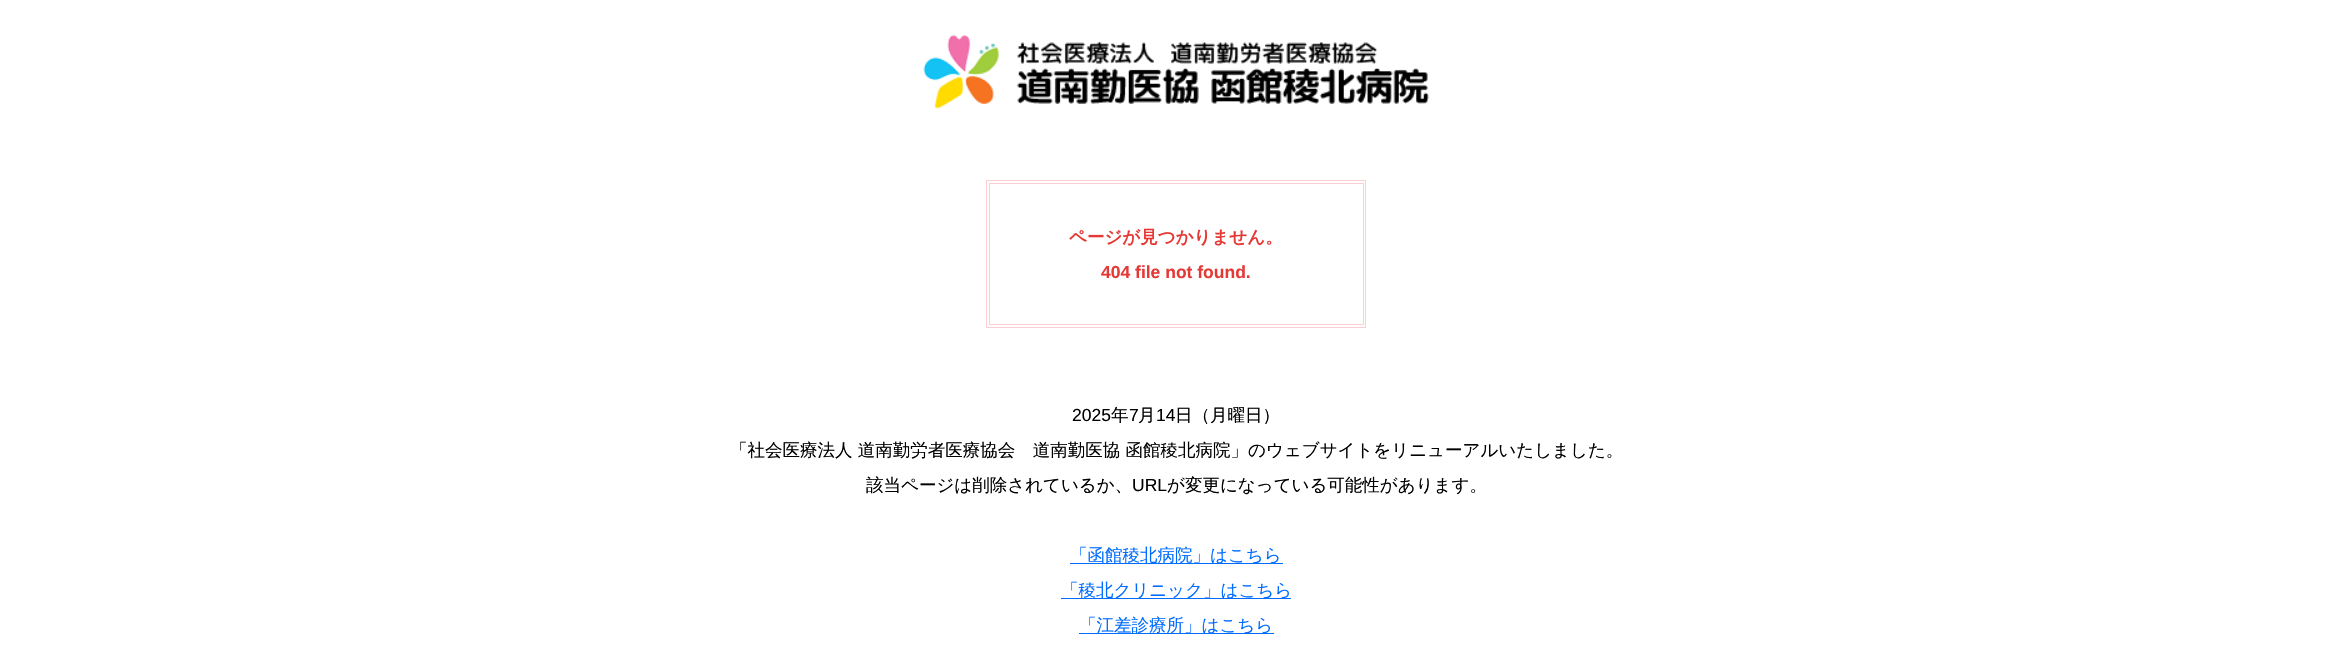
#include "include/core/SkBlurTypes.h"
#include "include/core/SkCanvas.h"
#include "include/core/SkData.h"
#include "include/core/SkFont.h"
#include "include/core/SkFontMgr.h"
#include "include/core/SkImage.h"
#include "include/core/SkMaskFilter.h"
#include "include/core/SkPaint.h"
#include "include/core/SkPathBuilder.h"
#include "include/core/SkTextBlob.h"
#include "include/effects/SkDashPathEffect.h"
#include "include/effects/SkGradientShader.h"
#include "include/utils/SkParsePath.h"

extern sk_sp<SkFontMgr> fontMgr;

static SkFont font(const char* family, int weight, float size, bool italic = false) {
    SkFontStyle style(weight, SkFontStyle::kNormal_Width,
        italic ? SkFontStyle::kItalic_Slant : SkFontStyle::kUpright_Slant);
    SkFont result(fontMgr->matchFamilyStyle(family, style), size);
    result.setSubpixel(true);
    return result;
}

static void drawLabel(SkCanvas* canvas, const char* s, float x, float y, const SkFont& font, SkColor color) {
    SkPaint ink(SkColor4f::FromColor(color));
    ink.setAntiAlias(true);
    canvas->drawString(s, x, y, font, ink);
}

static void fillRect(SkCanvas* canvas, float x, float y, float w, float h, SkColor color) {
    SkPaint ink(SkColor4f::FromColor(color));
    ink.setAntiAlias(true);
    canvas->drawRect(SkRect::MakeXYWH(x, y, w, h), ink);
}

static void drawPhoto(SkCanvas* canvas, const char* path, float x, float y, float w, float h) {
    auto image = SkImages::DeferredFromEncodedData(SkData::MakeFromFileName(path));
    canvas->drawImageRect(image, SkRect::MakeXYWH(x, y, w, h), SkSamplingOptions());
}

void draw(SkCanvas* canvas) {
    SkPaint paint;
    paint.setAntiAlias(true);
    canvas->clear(0xFFFFFFFF);
    drawPhoto(canvas, "assets/img1.png", 923, 35, 506, 74);
    paint.setStroke(true);
    paint.setStrokeWidth(1);
    paint.setColor(0xFFFFCDD2);
    canvas->drawRect(SkRect::MakeXYWH(986.5f, 180.5f, 379, 147), paint);
    canvas->drawRect(SkRect::MakeXYWH(989.5f, 183.5f, 374, 141), paint);
    SkFont font1 = font("WenQuanYi Zen Hei", 700, 17.5f);
    drawLabel(canvas, "ページが見つかりません。", 1069, 243, font1, 0xFFE53935);
    SkFont font2 = font("Liberation Sans", 700, 17.5f);
    drawLabel(canvas, "404 file not found.", 1101, 278, font2, 0xFFE53935);
    SkFont font3 = font("Liberation Sans", 400, 17.5f);
    drawLabel(canvas, "2025", 1072, 421, font3, 0xFF000000);
    SkFont font4 = font("WenQuanYi Zen Hei", 500, 17.5f);
    drawLabel(canvas, "年", 1111, 421, font4, 0xFF000000);
    drawLabel(canvas, "7", 1129, 421, font3, 0xFF000000);
    drawLabel(canvas, "月", 1138, 421, font4, 0xFF000000);
    drawLabel(canvas, "14", 1156, 421, font3, 0xFF000000);
    drawLabel(canvas, "日（月曜日）", 1175, 421, font4, 0xFF000000);
    drawLabel(canvas, "「社会医療法人 道南勤労者医療協会　道南勤医協 函館稜北病院」のウェブサイトをリニューアルいたしました。", 730, 456, font4, 0xFF000000);
    drawLabel(canvas, "該当ページは削除されているか、", 866, 491, font4, 0xFF000000);
    drawLabel(canvas, "URL", 1132, 491, font3, 0xFF000000);
    drawLabel(canvas, "が変更になっている可能性があります。", 1167, 491, font4, 0xFF000000);
    fillRect(canvas, 1070, 563, 213, 1, 0xFF006CFF);
    drawLabel(canvas, "「函館稜北病院」はこちら", 1070, 561, font4, 0xFF006CFF);
    fillRect(canvas, 1061, 598, 230, 1, 0xFF006CFF);
    drawLabel(canvas, "「稜北クリニック」はこちら", 1061, 596, font4, 0xFF006CFF);
    fillRect(canvas, 1079, 633, 195, 1, 0xFF006CFF);
    drawLabel(canvas, "「江差診療所」はこちら", 1079, 631, font4, 0xFF006CFF);
}
